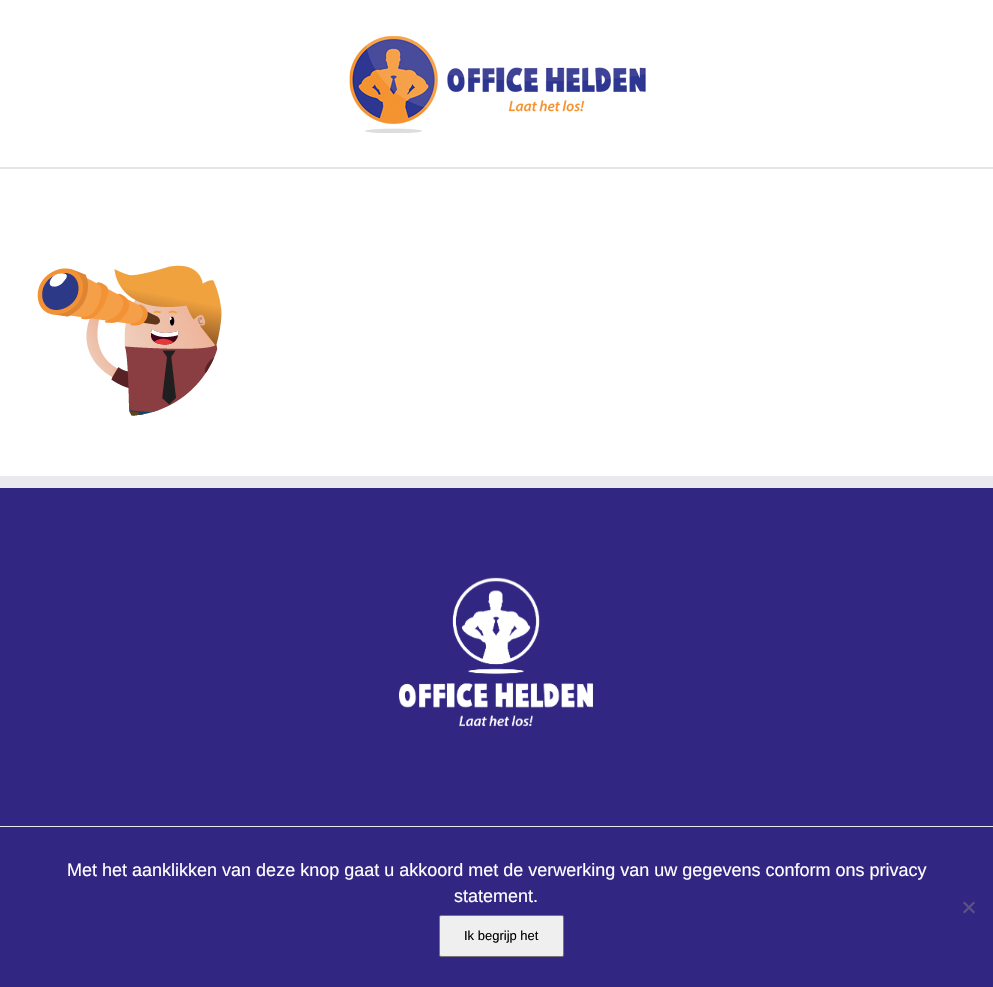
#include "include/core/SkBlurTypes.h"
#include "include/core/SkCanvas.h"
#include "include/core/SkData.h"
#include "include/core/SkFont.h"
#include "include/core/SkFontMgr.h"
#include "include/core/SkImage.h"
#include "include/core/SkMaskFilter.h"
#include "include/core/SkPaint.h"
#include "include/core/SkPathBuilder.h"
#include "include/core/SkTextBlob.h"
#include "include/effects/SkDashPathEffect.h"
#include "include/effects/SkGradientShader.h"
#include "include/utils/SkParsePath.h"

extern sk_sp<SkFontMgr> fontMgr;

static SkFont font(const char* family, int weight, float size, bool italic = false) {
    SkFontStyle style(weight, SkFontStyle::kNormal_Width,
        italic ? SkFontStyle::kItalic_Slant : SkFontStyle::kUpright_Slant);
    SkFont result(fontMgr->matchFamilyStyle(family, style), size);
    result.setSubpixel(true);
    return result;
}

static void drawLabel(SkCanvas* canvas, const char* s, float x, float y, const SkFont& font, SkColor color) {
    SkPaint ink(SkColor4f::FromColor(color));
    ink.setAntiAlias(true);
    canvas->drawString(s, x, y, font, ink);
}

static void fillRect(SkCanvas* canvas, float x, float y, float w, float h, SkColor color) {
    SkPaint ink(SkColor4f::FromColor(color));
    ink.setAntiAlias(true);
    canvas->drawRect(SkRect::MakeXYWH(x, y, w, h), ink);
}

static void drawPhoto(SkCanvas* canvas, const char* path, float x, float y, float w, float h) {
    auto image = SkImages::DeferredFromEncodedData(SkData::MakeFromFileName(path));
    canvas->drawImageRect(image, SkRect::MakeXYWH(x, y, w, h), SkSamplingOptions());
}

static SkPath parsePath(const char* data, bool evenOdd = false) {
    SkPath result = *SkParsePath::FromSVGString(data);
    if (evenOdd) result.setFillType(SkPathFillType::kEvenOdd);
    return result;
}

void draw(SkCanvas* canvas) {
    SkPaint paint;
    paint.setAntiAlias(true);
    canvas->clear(0xFFFFFFFF);
    drawPhoto(canvas, "assets/img1.png", 349, 36, 297, 97);
    fillRect(canvas, 0, 167, 993, 2, 0xFFE5E5E5);
    drawPhoto(canvas, "assets/img2.png", 37, 265, 185, 151);
    fillRect(canvas, 0, 488, 993, 338, 0xFF312783);
    fillRect(canvas, 0, 476, 993, 12, 0xFFE9EAEE);
    drawPhoto(canvas, "assets/img3.png", 399, 577, 194, 150);
    fillRect(canvas, 0, 827, 993, 160, 0xFF312783);
    fillRect(canvas, 0, 826, 993, 1, 0xFFE9EAEE);
    SkFont font1 = font("Liberation Sans", 400, 18);
    drawLabel(canvas, "Met het aanklikken van deze knop gaat u akkoord met de verwerking van uw gegevens conform ons privacy", 67, 876, font1, 0xFFFFFFFF);
    drawLabel(canvas, "statement.", 454, 902, font1, 0xFFFFFFFF);
    paint.setColor(0xFF595482);
    canvas->drawPath(parsePath("M973.5 901.5L975 903L964.5 913.5L963 912Z"), paint);
    canvas->drawPath(parsePath("M963 903L964.5 901.5L975 912L973.5 913.5Z"), paint);
    paint.setColor(0xFFEFEFEF);
    canvas->drawRoundRect(SkRect::MakeXYWH(439.5f, 915.5f, 124, 41), 1.5f, 1.5f, paint);
    paint.setStroke(true);
    paint.setStrokeWidth(1);
    paint.setColor(0xFF767676);
    canvas->drawRoundRect(SkRect::MakeXYWH(439.5f, 915.5f, 124, 41), 1.5f, 1.5f, paint);
    SkFont font2 = font("Liberation Sans", 400, 13);
    drawLabel(canvas, "Ik begrijp het", 464, 940, font2, 0xFF000000);
}
